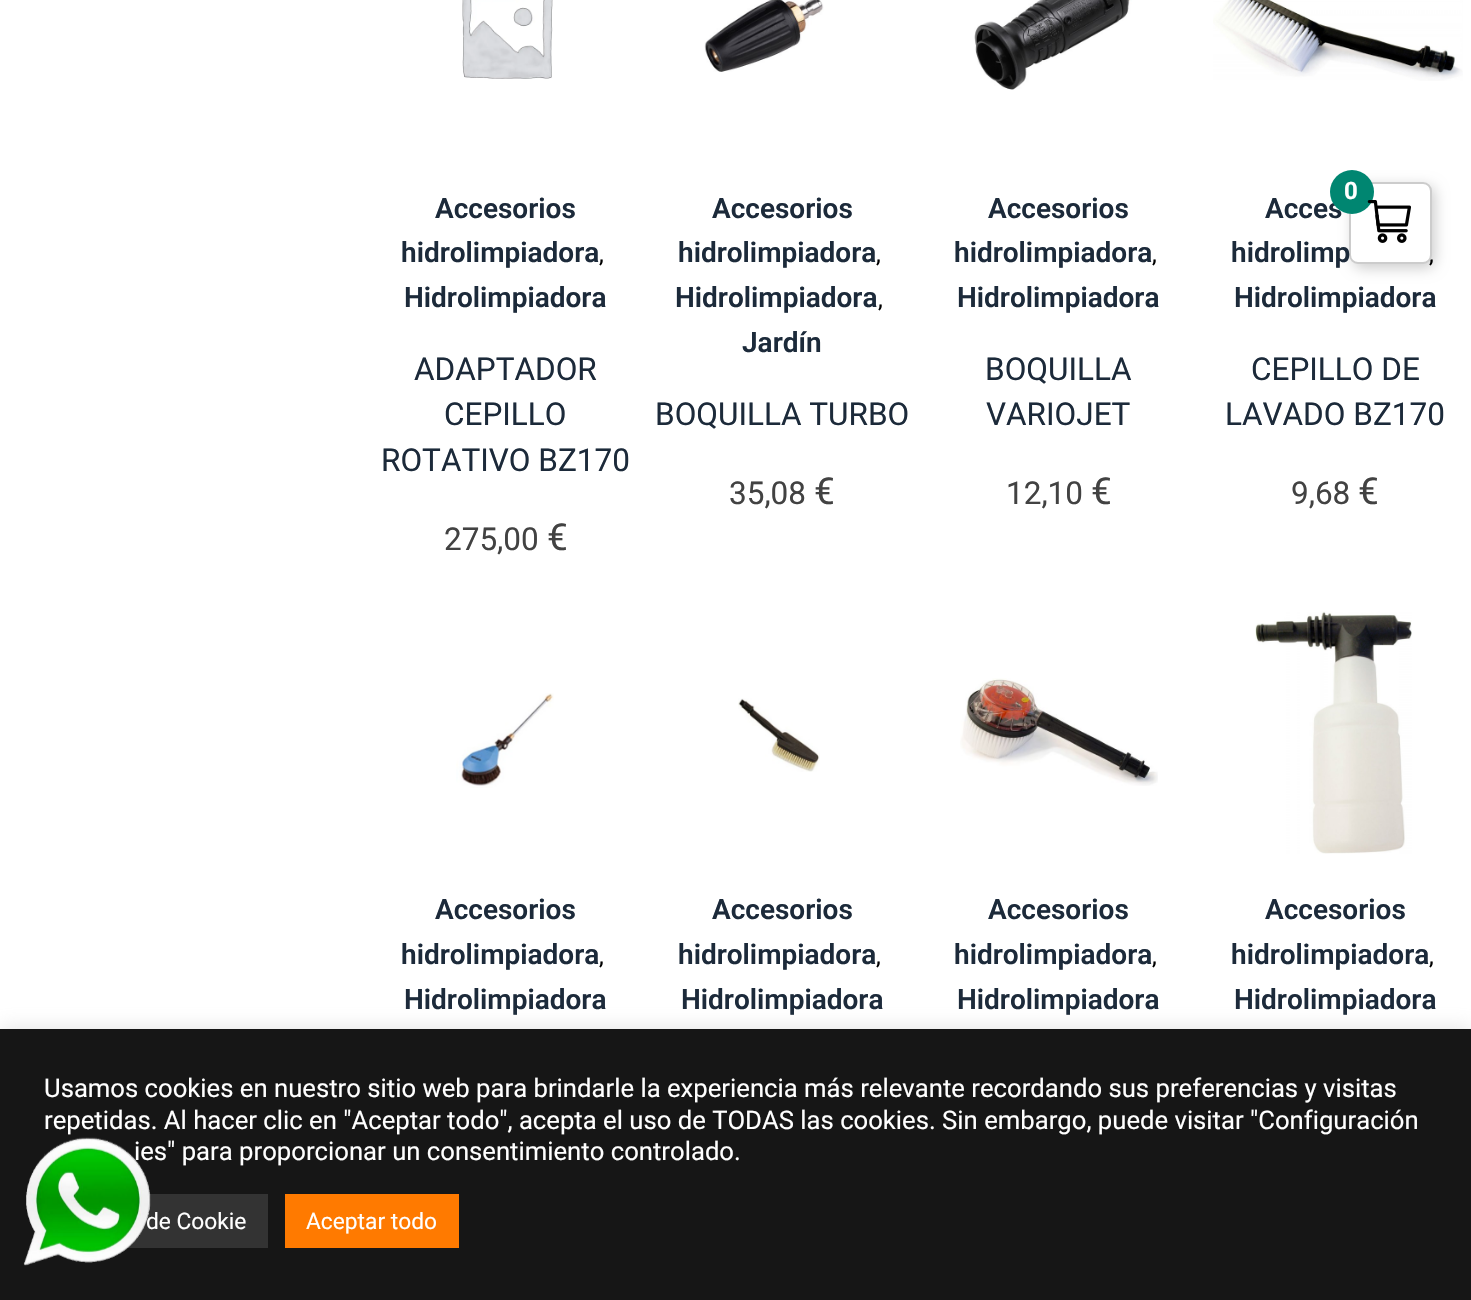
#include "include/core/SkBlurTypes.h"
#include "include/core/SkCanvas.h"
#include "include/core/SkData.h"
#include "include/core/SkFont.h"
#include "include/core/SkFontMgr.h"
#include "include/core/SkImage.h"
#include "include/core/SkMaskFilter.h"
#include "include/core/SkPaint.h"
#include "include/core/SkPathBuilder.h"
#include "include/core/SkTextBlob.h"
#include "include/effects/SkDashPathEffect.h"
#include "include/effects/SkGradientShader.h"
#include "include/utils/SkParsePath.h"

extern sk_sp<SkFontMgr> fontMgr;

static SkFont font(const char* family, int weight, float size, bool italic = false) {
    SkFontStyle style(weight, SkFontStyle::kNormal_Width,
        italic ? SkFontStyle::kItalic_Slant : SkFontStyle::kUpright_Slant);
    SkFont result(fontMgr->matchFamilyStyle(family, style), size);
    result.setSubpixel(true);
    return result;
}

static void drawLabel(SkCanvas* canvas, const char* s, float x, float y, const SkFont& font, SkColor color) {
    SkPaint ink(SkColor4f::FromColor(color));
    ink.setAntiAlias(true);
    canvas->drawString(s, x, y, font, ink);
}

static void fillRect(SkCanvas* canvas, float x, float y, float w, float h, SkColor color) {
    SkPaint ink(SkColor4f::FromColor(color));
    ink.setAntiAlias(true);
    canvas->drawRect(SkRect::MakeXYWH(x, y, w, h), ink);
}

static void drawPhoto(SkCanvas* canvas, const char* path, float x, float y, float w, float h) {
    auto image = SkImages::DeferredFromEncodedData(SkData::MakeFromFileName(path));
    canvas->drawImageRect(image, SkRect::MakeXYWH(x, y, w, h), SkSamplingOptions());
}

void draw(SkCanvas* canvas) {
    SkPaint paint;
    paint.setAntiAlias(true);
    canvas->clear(0xFFFFFFFF);
    paint.setColor(0xFFCCCCCC);
    paint.setMaskFilter(SkMaskFilter::MakeBlur(kNormal_SkBlurStyle, 7));
    canvas->drawRoundRect(SkRect::MakeXYWH(1353, 186, 82, 82), 9, 9, paint);
    paint.setMaskFilter(nullptr);
    SkFont font1 = font("Roboto", 400, 24);
    drawLabel(canvas, ",", 1429, 262, font1, 0xFF000000);
    paint.setColor(0xFFFFFFFF);
    canvas->drawRoundRect(SkRect::MakeXYWH(1350, 183, 81, 80), 8, 8, paint);
    paint.setStroke(true);
    paint.setStrokeWidth(2);
    paint.setColor(0xFFCCCCCC);
    canvas->drawRoundRect(SkRect::MakeXYWH(1350, 183, 81, 80), 8, 8, paint);
    SkFont font2 = font("Roboto", 600, 28);
    drawLabel(canvas, "Acces", 1265, 218, font2, 0xFF1C2A3A);
    paint.setStroke(false);
    paint.setColor(0xFF008671);
    canvas->drawCircle(1352, 192, 22, paint);
    SkFont font3 = font("Roboto", 700, 24);
    drawLabel(canvas, "0", 1344, 199, font3, 0xFFFFFFFF);
    drawPhoto(canvas, "assets/img1.png", 1367, 200, 44, 43);
    drawPhoto(canvas, "assets/img2.png", 462, 0, 91, 79);
    drawLabel(canvas, "Accesorios", 435, 218, font2, 0xFF1C2A3A);
    drawLabel(canvas, "hidrolimpiadora", 401, 262, font2, 0xFF1C2A3A);
    drawLabel(canvas, ",", 599, 262, font1, 0xFF000000);
    drawLabel(canvas, "Hidrolimpiadora", 404, 307, font2, 0xFF1C2A3A);
    SkFont font4 = font("Roboto", 400, 31.5f);
    drawLabel(canvas, "ADAPTADOR", 414, 380, font4, 0xFF1C2A3A);
    drawLabel(canvas, "CEPILLO", 444, 425, font4, 0xFF1C2A3A);
    drawLabel(canvas, "ROTATIVO BZ170", 381, 471, font4, 0xFF1C2A3A);
    drawLabel(canvas, "275,00", 444, 550, font4, 0xFF424242);
    SkFont font5 = font("Roboto", 400, 37);
    drawLabel(canvas, "€", 547, 550, font5, 0xFF424242);
    drawPhoto(canvas, "assets/img3.png", 704, 0, 120, 72);
    drawLabel(canvas, "Accesorios", 712, 218, font2, 0xFF1C2A3A);
    drawLabel(canvas, "hidrolimpiadora", 678, 262, font2, 0xFF1C2A3A);
    drawLabel(canvas, ",", 876, 262, font1, 0xFF000000);
    drawLabel(canvas, "Hidrolimpiadora", 675, 307, font2, 0xFF1C2A3A);
    drawLabel(canvas, ",", 878, 307, font1, 0xFF000000);
    drawLabel(canvas, "Jardín", 742, 352, font2, 0xFF1C2A3A);
    drawLabel(canvas, "BOQUILLA TURBO", 655, 425, font4, 0xFF1C2A3A);
    drawLabel(canvas, "35,08", 729, 504, font4, 0xFF424242);
    drawLabel(canvas, "€", 814, 504, font5, 0xFF424242);
    drawPhoto(canvas, "assets/img4.png", 974, 0, 158, 90);
    drawLabel(canvas, "Accesorios", 988, 218, font2, 0xFF1C2A3A);
    drawLabel(canvas, "hidrolimpiadora", 954, 262, font2, 0xFF1C2A3A);
    drawLabel(canvas, ",", 1152, 262, font1, 0xFF000000);
    drawLabel(canvas, "Hidrolimpiadora", 957, 307, font2, 0xFF1C2A3A);
    drawLabel(canvas, "BOQUILLA", 985, 380, font4, 0xFF1C2A3A);
    drawLabel(canvas, "VARIOJET", 986, 425, font4, 0xFF1C2A3A);
    drawLabel(canvas, "12,10", 1006, 504, font4, 0xFF424242);
    drawLabel(canvas, "€", 1091, 504, font5, 0xFF424242);
    drawPhoto(canvas, "assets/img5.png", 1213, 0, 250, 81);
    drawLabel(canvas, "hidrolimp", 1231, 262, font2, 0xFF1C2A3A);
    drawLabel(canvas, "Hidrolimpiadora", 1234, 307, font2, 0xFF1C2A3A);
    drawLabel(canvas, "CEPILLO DE", 1251, 380, font4, 0xFF1C2A3A);
    drawLabel(canvas, "LAVADO BZ170", 1225, 425, font4, 0xFF1C2A3A);
    drawLabel(canvas, "9,68", 1291, 504, font4, 0xFF424242);
    drawLabel(canvas, "€", 1358, 504, font5, 0xFF424242);
    drawPhoto(canvas, "assets/img6.png", 456, 693, 98, 95);
    drawLabel(canvas, "Accesorios", 435, 919, font2, 0xFF1C2A3A);
    drawLabel(canvas, "hidrolimpiadora", 401, 964, font2, 0xFF1C2A3A);
    drawLabel(canvas, ",", 599, 964, font1, 0xFF000000);
    drawLabel(canvas, "Hidrolimpiadora", 404, 1009, font2, 0xFF1C2A3A);
    drawPhoto(canvas, "assets/img7.png", 738, 698, 82, 74);
    drawLabel(canvas, "Accesorios", 712, 919, font2, 0xFF1C2A3A);
    drawLabel(canvas, "hidrolimpiadora", 678, 964, font2, 0xFF1C2A3A);
    drawLabel(canvas, ",", 876, 964, font1, 0xFF000000);
    drawLabel(canvas, "Hidrolimpiadora", 681, 1009, font2, 0xFF1C2A3A);
    drawPhoto(canvas, "assets/img8.png", 960, 678, 198, 108);
    drawLabel(canvas, "Accesorios", 988, 919, font2, 0xFF1C2A3A);
    drawLabel(canvas, "hidrolimpiadora", 954, 964, font2, 0xFF1C2A3A);
    drawLabel(canvas, ",", 1152, 964, font1, 0xFF000000);
    drawLabel(canvas, "Hidrolimpiadora", 957, 1009, font2, 0xFF1C2A3A);
    drawPhoto(canvas, "assets/img9.png", 1255, 611, 157, 243);
    drawLabel(canvas, "Accesorios", 1265, 919, font2, 0xFF1C2A3A);
    drawLabel(canvas, "hidrolimpiadora", 1231, 964, font2, 0xFF1C2A3A);
    drawLabel(canvas, ",", 1429, 964, font1, 0xFF000000);
    drawLabel(canvas, "Hidrolimpiadora", 1234, 1009, font2, 0xFF1C2A3A);
    paint.setColor(0x4DACABAB);
    paint.setMaskFilter(SkMaskFilter::MakeBlur(kNormal_SkBlurStyle, 9));
    canvas->drawRect(SkRect::MakeXYWH(0, 1027, 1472, 272), paint);
    paint.setMaskFilter(nullptr);
    fillRect(canvas, 0, 1029, 1471, 271, 0xFF161616);
    SkFont font6 = font("Roboto", 400, 25.67f);
    drawLabel(canvas, "Usamos cookies en nuestro sitio web para brindarle la experiencia más relevante recordando sus preferencias y visitas", 44, 1097, font6, 0xFFFFFFFF);
    drawLabel(canvas, "repetidas. Al hacer clic en \"Aceptar todo\", acepta el uso de TODAS las cookies. Sin embargo, puede visitar \"Configuración", 44, 1129, font6, 0xFFFFFFFF);
    drawLabel(canvas, "ies\" para proporcionar un consentimiento controlado.", 134, 1160, font6, 0xFFFFFFFF);
    fillRect(canvas, 126, 1194, 142, 54, 0xFF333333);
    SkFont font7 = font("Roboto", 400, 22.75f);
    drawLabel(canvas, "de Cookie", 146, 1229, font7, 0xFFFFFFFF);
    fillRect(canvas, 285, 1194, 174, 54, 0xFFFF7A00);
    drawLabel(canvas, "Aceptar todo", 306, 1229, font7, 0xFFFFFFFF);
    drawPhoto(canvas, "assets/img10.png", 23, 1137, 128, 129);
}
